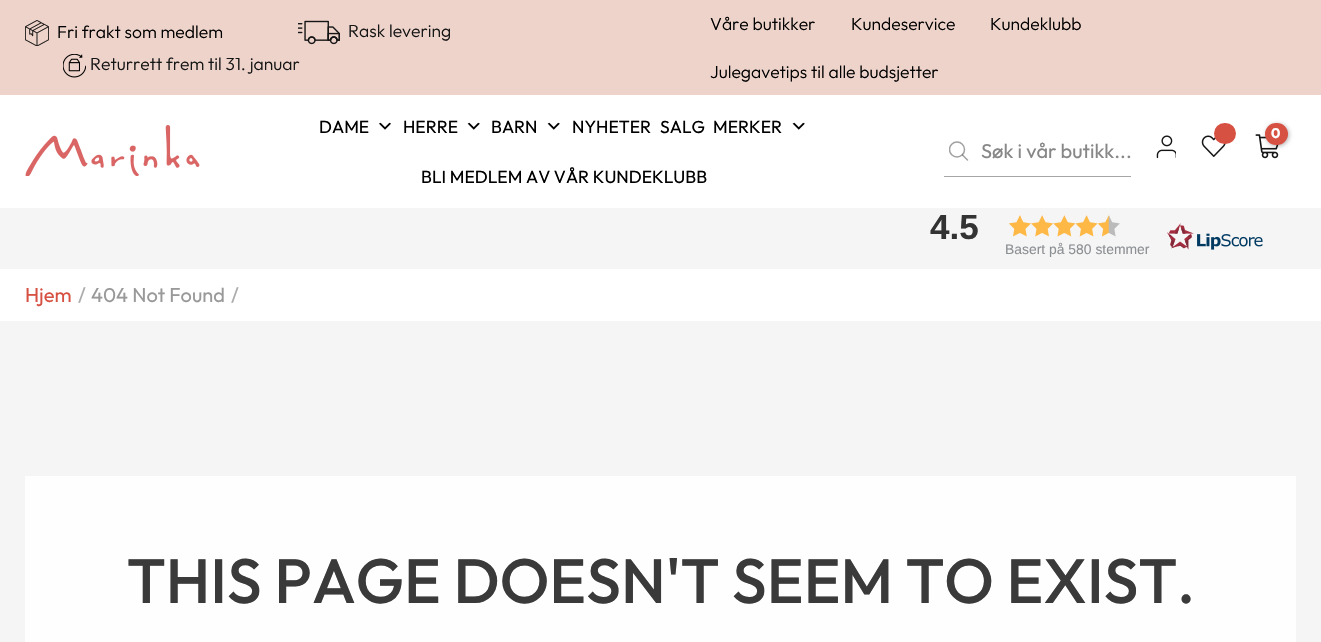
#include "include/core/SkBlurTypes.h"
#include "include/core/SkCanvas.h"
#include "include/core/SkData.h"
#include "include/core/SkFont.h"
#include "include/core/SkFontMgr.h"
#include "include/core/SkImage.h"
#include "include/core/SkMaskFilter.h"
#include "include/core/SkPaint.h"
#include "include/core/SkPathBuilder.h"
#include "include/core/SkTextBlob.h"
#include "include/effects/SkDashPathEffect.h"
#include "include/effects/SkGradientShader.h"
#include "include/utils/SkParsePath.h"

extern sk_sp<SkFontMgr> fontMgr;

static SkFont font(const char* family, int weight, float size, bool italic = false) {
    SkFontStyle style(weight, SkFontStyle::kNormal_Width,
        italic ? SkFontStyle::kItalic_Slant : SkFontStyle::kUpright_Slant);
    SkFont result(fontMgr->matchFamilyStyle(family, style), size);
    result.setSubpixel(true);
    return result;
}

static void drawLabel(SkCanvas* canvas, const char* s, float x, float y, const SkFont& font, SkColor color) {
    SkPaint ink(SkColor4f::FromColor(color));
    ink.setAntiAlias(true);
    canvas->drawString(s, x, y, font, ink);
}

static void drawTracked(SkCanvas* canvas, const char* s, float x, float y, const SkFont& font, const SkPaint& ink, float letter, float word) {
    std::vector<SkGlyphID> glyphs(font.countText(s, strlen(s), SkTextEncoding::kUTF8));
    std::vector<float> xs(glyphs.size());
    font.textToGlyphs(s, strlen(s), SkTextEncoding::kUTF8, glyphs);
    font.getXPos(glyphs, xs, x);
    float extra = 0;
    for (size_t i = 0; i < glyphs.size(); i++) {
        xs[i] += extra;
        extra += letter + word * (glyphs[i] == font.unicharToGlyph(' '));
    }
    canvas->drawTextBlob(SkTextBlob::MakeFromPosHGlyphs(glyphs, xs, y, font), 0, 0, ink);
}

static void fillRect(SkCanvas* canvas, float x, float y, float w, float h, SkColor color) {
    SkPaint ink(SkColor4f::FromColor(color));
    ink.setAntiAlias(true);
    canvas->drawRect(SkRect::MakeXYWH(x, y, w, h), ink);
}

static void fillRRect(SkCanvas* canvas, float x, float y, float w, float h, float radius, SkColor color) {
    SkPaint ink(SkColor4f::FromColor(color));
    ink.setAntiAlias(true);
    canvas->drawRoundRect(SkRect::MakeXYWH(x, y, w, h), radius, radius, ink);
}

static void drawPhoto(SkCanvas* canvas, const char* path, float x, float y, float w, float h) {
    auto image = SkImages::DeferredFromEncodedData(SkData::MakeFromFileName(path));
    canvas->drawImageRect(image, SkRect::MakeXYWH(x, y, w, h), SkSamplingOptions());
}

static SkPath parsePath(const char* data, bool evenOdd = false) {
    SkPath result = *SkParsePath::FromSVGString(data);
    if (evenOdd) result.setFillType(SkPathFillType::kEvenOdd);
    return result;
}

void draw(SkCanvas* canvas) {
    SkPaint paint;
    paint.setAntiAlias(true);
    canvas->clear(0xFFF5F5F5);
    fillRect(canvas, 0, 0, 1321, 95, 0xFFEDD3CA);
    drawPhoto(canvas, "assets/img1.png", 25, 20, 24, 26);
    SkFont font1 = font("Outfit", 300, 17.5f);
    drawLabel(canvas, "Fri frakt som medlem", 57, 38, font1, 0xFF000000);
    drawPhoto(canvas, "assets/img2.png", 298, 20, 42, 25);
    drawLabel(canvas, "Rask levering", 348, 37, font1, 0xFF151515);
    drawPhoto(canvas, "assets/img3.png", 63, 54, 23, 24);
    drawLabel(canvas, "Returrett frem til 31. januar", 90, 70, font1, 0xFF151515);
    drawLabel(canvas, "Våre butikker", 710, 30, font1, 0xFF000000);
    drawLabel(canvas, "Kundeservice", 851, 30, font1, 0xFF000000);
    drawLabel(canvas, "Kundeklubb", 990, 30, font1, 0xFF000000);
    drawLabel(canvas, "Julegavetips til alle budsjetter", 710, 78, font1, 0xFF000000);
    fillRect(canvas, 0, 95, 1321, 113, 0xFFFFFFFF);
    drawPhoto(canvas, "assets/img4.png", 25, 125, 175, 51);
    SkFont font2 = font("Outfit", 400, 17.5f);
    drawLabel(canvas, "DAME", 319, 133, font2, 0xFF000000);
    drawPhoto(canvas, "assets/img5.png", 379, 122, 12, 8);
    drawLabel(canvas, "HERRE", 403, 133, font2, 0xFF000000);
    drawPhoto(canvas, "assets/img6.png", 467, 122, 13, 8);
    drawLabel(canvas, "BARN", 491, 133, font2, 0xFF000000);
    drawPhoto(canvas, "assets/img6.png", 547, 122, 13, 8);
    drawLabel(canvas, "NYHETER", 572, 133, font2, 0xFF000000);
    drawLabel(canvas, "SALG", 660, 133, font2, 0xFF000000);
    drawLabel(canvas, "MERKER", 713, 133, font2, 0xFF000000);
    drawPhoto(canvas, "assets/img6.png", 792, 122, 13, 8);
    drawLabel(canvas, "BLI MEDLEM AV VÅR KUNDEKLUBB", 421, 183, font2, 0xFF000000);
    drawPhoto(canvas, "assets/img7.png", 1201, 135, 25, 22);
    fillRRect(canvas, 1214, 123, 22, 21, 10.5f, 0xFFD75142);
    drawPhoto(canvas, "assets/img8.png", 1255, 134, 24, 25);
    paint.setColor(0x4D000000);
    paint.setMaskFilter(SkMaskFilter::MakeBlur(kNormal_SkBlurStyle, 2));
    canvas->drawRoundRect(SkRect::MakeXYWH(1266, 124, 23, 22), 11, 11, paint);
    paint.setMaskFilter(nullptr);
    fillRRect(canvas, 1265, 123, 23, 22, 11, 0xFFD75142);
    SkFont font3 = font("Outfit", 700, 14);
    paint.setColor(0xFFFFFFFF);
    drawTracked(canvas, "0", 1271, 138, font3, paint, -1, 0);
    fillRect(canvas, 944, 176, 187, 1, 0xFFA6A6A6);
    canvas->save();
    canvas->clipRect(SkRect::MakeXYWH(949, 141, 20, 20));
    paint.setStroke(true);
    paint.setStrokeWidth(1.5f);
    paint.setColor(0xFFA1A1A1);
    canvas->drawCircle(957, 149.5f, 7.5f, paint);
    canvas->restore();
    paint.setStrokeCap(SkPaint::kRound_Cap);
    paint.setColor(0x66151515);
    canvas->drawPath(parsePath("M962.5 155L967.5 160"), paint);
    SkFont font4 = font("Outfit", 400, 20);
    drawLabel(canvas, "Søk i vår butikk...", 981, 158, font4, 0xFF878787);
    drawPhoto(canvas, "assets/img9.png", 1156, 135, 20, 24);
    SkFont font5 = font("Liberation Sans", 700, 35);
    drawLabel(canvas, "4.5", 930, 239, font5, 0xFF333333);
    drawPhoto(canvas, "assets/img10.png", 1009, 215, 254, 35);
    SkFont font6 = font("Liberation Sans", 400, 13.9f);
    drawLabel(canvas, "Basert på 580 stemmer", 1005, 254, font6, 0xFF8C8F93);
    fillRect(canvas, 0, 269, 1321, 52, 0xFFFFFFFF);
    drawLabel(canvas, "Hjem", 25, 302, font4, 0xFFD75142);
    drawLabel(canvas, "/", 78, 302, font4, 0xFFABABAB);
    drawLabel(canvas, "404 Not Found", 91, 302, font4, 0xFF999999);
    drawLabel(canvas, "/", 231, 302, font4, 0xFFABABAB);
    fillRect(canvas, 25, 476, 1271, 166, 0xFFFEFEFE);
    SkFont font7 = font("Outfit", 500, 62.5f);
    drawLabel(canvas, "THIS PAGE DOESN'T SEEM TO EXIST.", 127, 603, font7, 0xFF3A3A3A);
}
